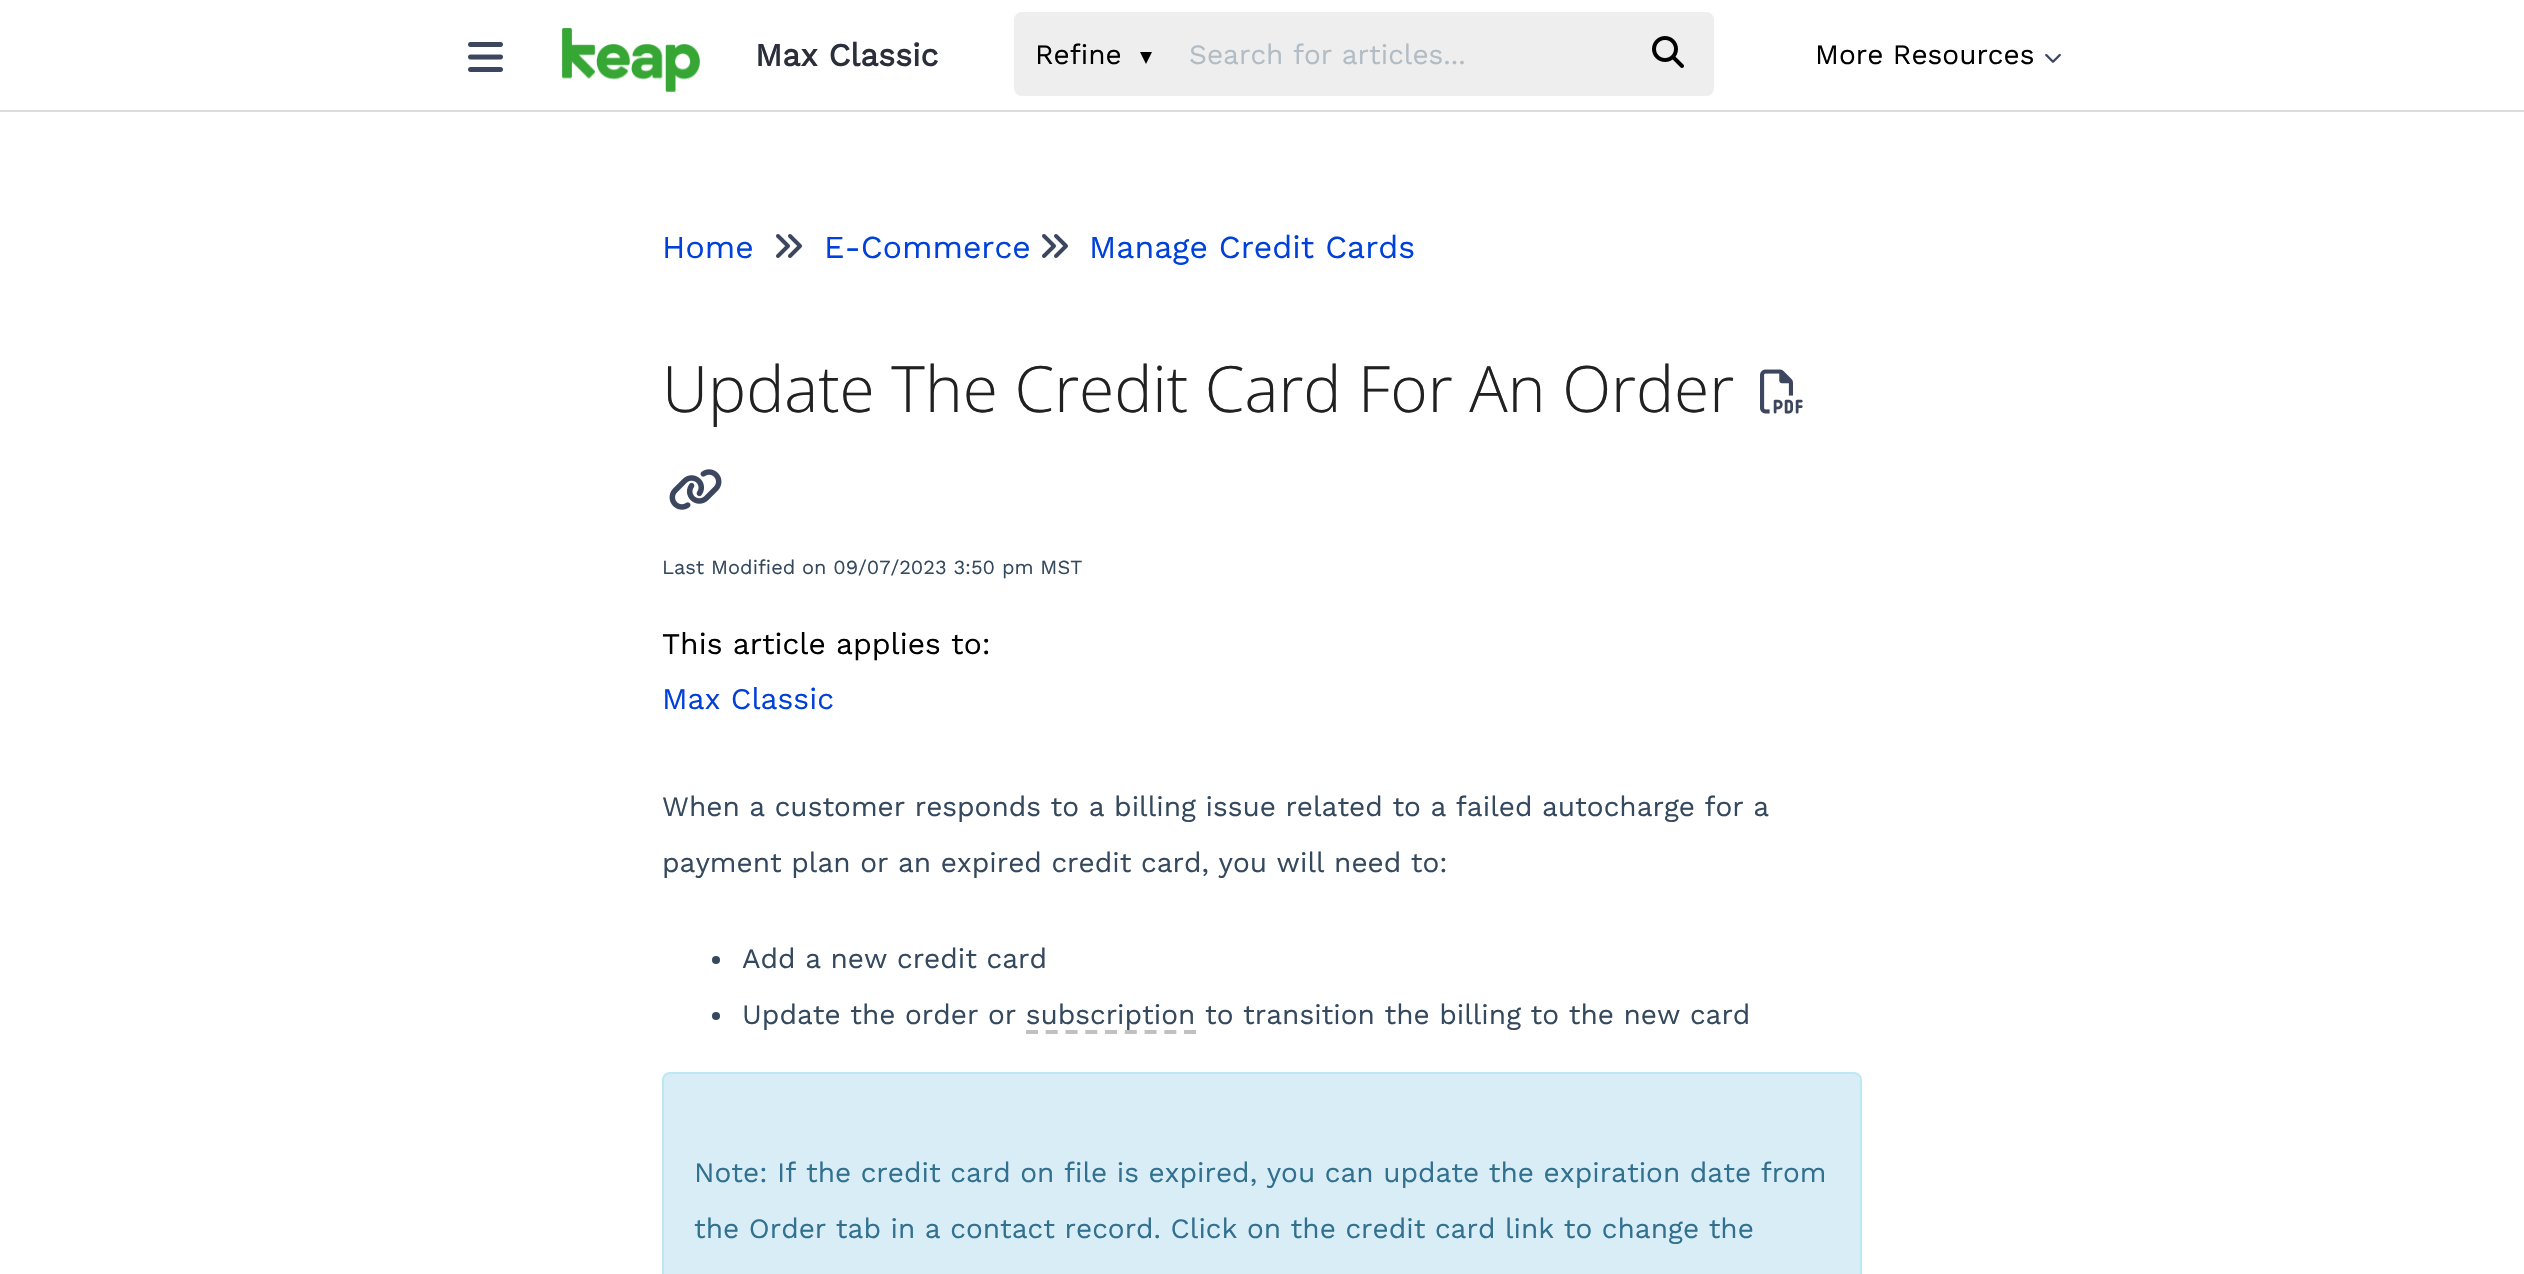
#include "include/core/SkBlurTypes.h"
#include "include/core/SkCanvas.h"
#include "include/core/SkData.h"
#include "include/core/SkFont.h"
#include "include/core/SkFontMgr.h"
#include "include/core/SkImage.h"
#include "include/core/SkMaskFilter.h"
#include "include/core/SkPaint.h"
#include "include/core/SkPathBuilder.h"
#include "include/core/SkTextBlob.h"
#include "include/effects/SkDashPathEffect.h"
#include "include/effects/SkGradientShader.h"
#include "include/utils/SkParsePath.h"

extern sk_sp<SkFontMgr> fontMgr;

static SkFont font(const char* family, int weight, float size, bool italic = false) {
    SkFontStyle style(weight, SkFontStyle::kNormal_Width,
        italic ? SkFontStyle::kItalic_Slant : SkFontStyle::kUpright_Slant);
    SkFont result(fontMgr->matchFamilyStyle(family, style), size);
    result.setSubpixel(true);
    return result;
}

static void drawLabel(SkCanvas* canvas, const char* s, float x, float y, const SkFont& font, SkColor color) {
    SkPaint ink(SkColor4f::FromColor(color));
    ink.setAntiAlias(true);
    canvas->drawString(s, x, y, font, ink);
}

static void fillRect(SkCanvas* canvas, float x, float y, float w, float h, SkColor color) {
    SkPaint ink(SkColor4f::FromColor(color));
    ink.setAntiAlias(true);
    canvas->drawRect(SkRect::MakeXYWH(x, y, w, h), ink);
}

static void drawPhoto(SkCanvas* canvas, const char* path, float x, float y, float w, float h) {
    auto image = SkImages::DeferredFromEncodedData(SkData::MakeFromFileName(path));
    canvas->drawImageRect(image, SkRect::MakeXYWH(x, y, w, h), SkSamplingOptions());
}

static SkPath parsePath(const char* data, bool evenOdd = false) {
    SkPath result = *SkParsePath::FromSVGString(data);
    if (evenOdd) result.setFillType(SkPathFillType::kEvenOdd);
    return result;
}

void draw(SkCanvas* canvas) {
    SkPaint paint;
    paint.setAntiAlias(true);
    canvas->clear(0xFFFFFFFF);
    fillRect(canvas, 0, 110, 2524, 2, 0xFFDDDDDD);
    drawPhoto(canvas, "assets/img1.png", 468, 42, 35, 30);
    drawPhoto(canvas, "assets/img2.png", 562, 28, 138, 64);
    SkFont font1 = font("Work Sans", 700, 32);
    drawLabel(canvas, "Max Classic", 755, 66, font1, 0xFF2B2F3B);
    paint.setColor(0xFFEEEEEE);
    canvas->drawPath(parsePath("M1022 12H1172V96H1022C1017.5 96 1014 92.5 1014 88V20C1014 15.5 1017.5 12 1022 12Z"), paint);
    SkFont font2 = font("Work Sans", 400, 28);
    drawLabel(canvas, "Refine", 1035, 64, font2, 0xFF000000);
    paint.setColor(0xFF000000);
    canvas->drawPath(parsePath("M1140 52H1152L1146 64Z"), paint);
    fillRect(canvas, 1172, 12, 450, 84, 0xFFEEEEEE);
    drawLabel(canvas, "Search for articles...", 1189, 64, font2, 0xFFB2BCC5);
    paint.setColor(0xFFEEEEEE);
    canvas->drawPath(parsePath("M1622 12H1706C1710.5 12 1714 15.5 1714 20V88C1714 92.5 1710.5 96 1706 96H1622Z"), paint);
    drawPhoto(canvas, "assets/img3.png", 1652, 36, 32, 32);
    drawLabel(canvas, "More Resources", 1815, 64, font2, 0xFF000000);
    drawPhoto(canvas, "assets/img4.png", 2045, 53, 16, 10);
    SkFont font3 = font("Work Sans", 400, 32);
    drawLabel(canvas, "Home", 662, 258, font3, 0xFF0040DB);
    drawPhoto(canvas, "assets/img5.png", 776, 234, 26, 24);
    drawLabel(canvas, "E-Commerce", 824, 258, font3, 0xFF0040DB);
    drawPhoto(canvas, "assets/img5.png", 1042, 234, 26, 24);
    drawLabel(canvas, "Manage Credit Cards", 1089, 258, font3, 0xFF0040DB);
    SkFont font4 = font("Open Sans", 300, 64);
    drawLabel(canvas, "Update The Credit Card For An Order", 662, 412, font4, 0xFF212121);
    drawPhoto(canvas, "assets/img6.png", 1760, 369, 43, 45);
    drawPhoto(canvas, "assets/img7.png", 669, 469, 53, 41);
    SkFont font5 = font("Work Sans", 400, 20);
    drawLabel(canvas, "Last Modified on 09/07/2023 3:50 pm MST", 662, 574, font5, 0xFF34495E);
    SkFont font6 = font("Work Sans", 400, 30);
    drawLabel(canvas, "This article applies to:", 662, 654, font6, 0xFF000000);
    drawLabel(canvas, "Max Classic", 662, 709, font6, 0xFF0040DB);
    drawLabel(canvas, "When a customer responds to a billing issue related to a failed autocharge for a", 662, 816, font2, 0xFF34495E);
    drawLabel(canvas, "payment plan or an expired credit card, you will need to:", 662, 872, font2, 0xFF34495E);
    paint.setColor(0xFF34495E);
    canvas->drawCircle(716, 960, 4, paint);
    drawLabel(canvas, "Add a new credit card", 742, 968, font2, 0xFF34495E);
    canvas->drawCircle(716, 1016, 4, paint);
    drawLabel(canvas, "Update the order or subscription to transition the billing to the new card", 742, 1024, font2, 0xFF34495E);
    paint.setStroke(true);
    paint.setStrokeWidth(4);
    paint.setColor(0xFFC0C0C0);
    paint.setPathEffect(SkDashPathEffect::Make({{12, 7.76f}}, 0));
    canvas->drawPath(parsePath("M1026 1032H1196"), paint);
    paint.setPathEffect(nullptr);
    paint.setStroke(false);
    paint.setColor(0xFFD9EDF7);
    canvas->drawRoundRect(SkRect::MakeXYWH(663, 1073, 1198, 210), 7, 7, paint);
    paint.setStroke(true);
    paint.setStrokeWidth(2);
    paint.setColor(0xFFBCE8F1);
    canvas->drawRoundRect(SkRect::MakeXYWH(663, 1073, 1198, 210), 7, 7, paint);
    drawLabel(canvas, "Note: If the credit card on file is expired, you can update the expiration date from", 694, 1182, font2, 0xFF31708F);
    drawLabel(canvas, "the Order tab in a contact record. Click on the credit card link to change the", 694, 1238, font2, 0xFF31708F);
}
